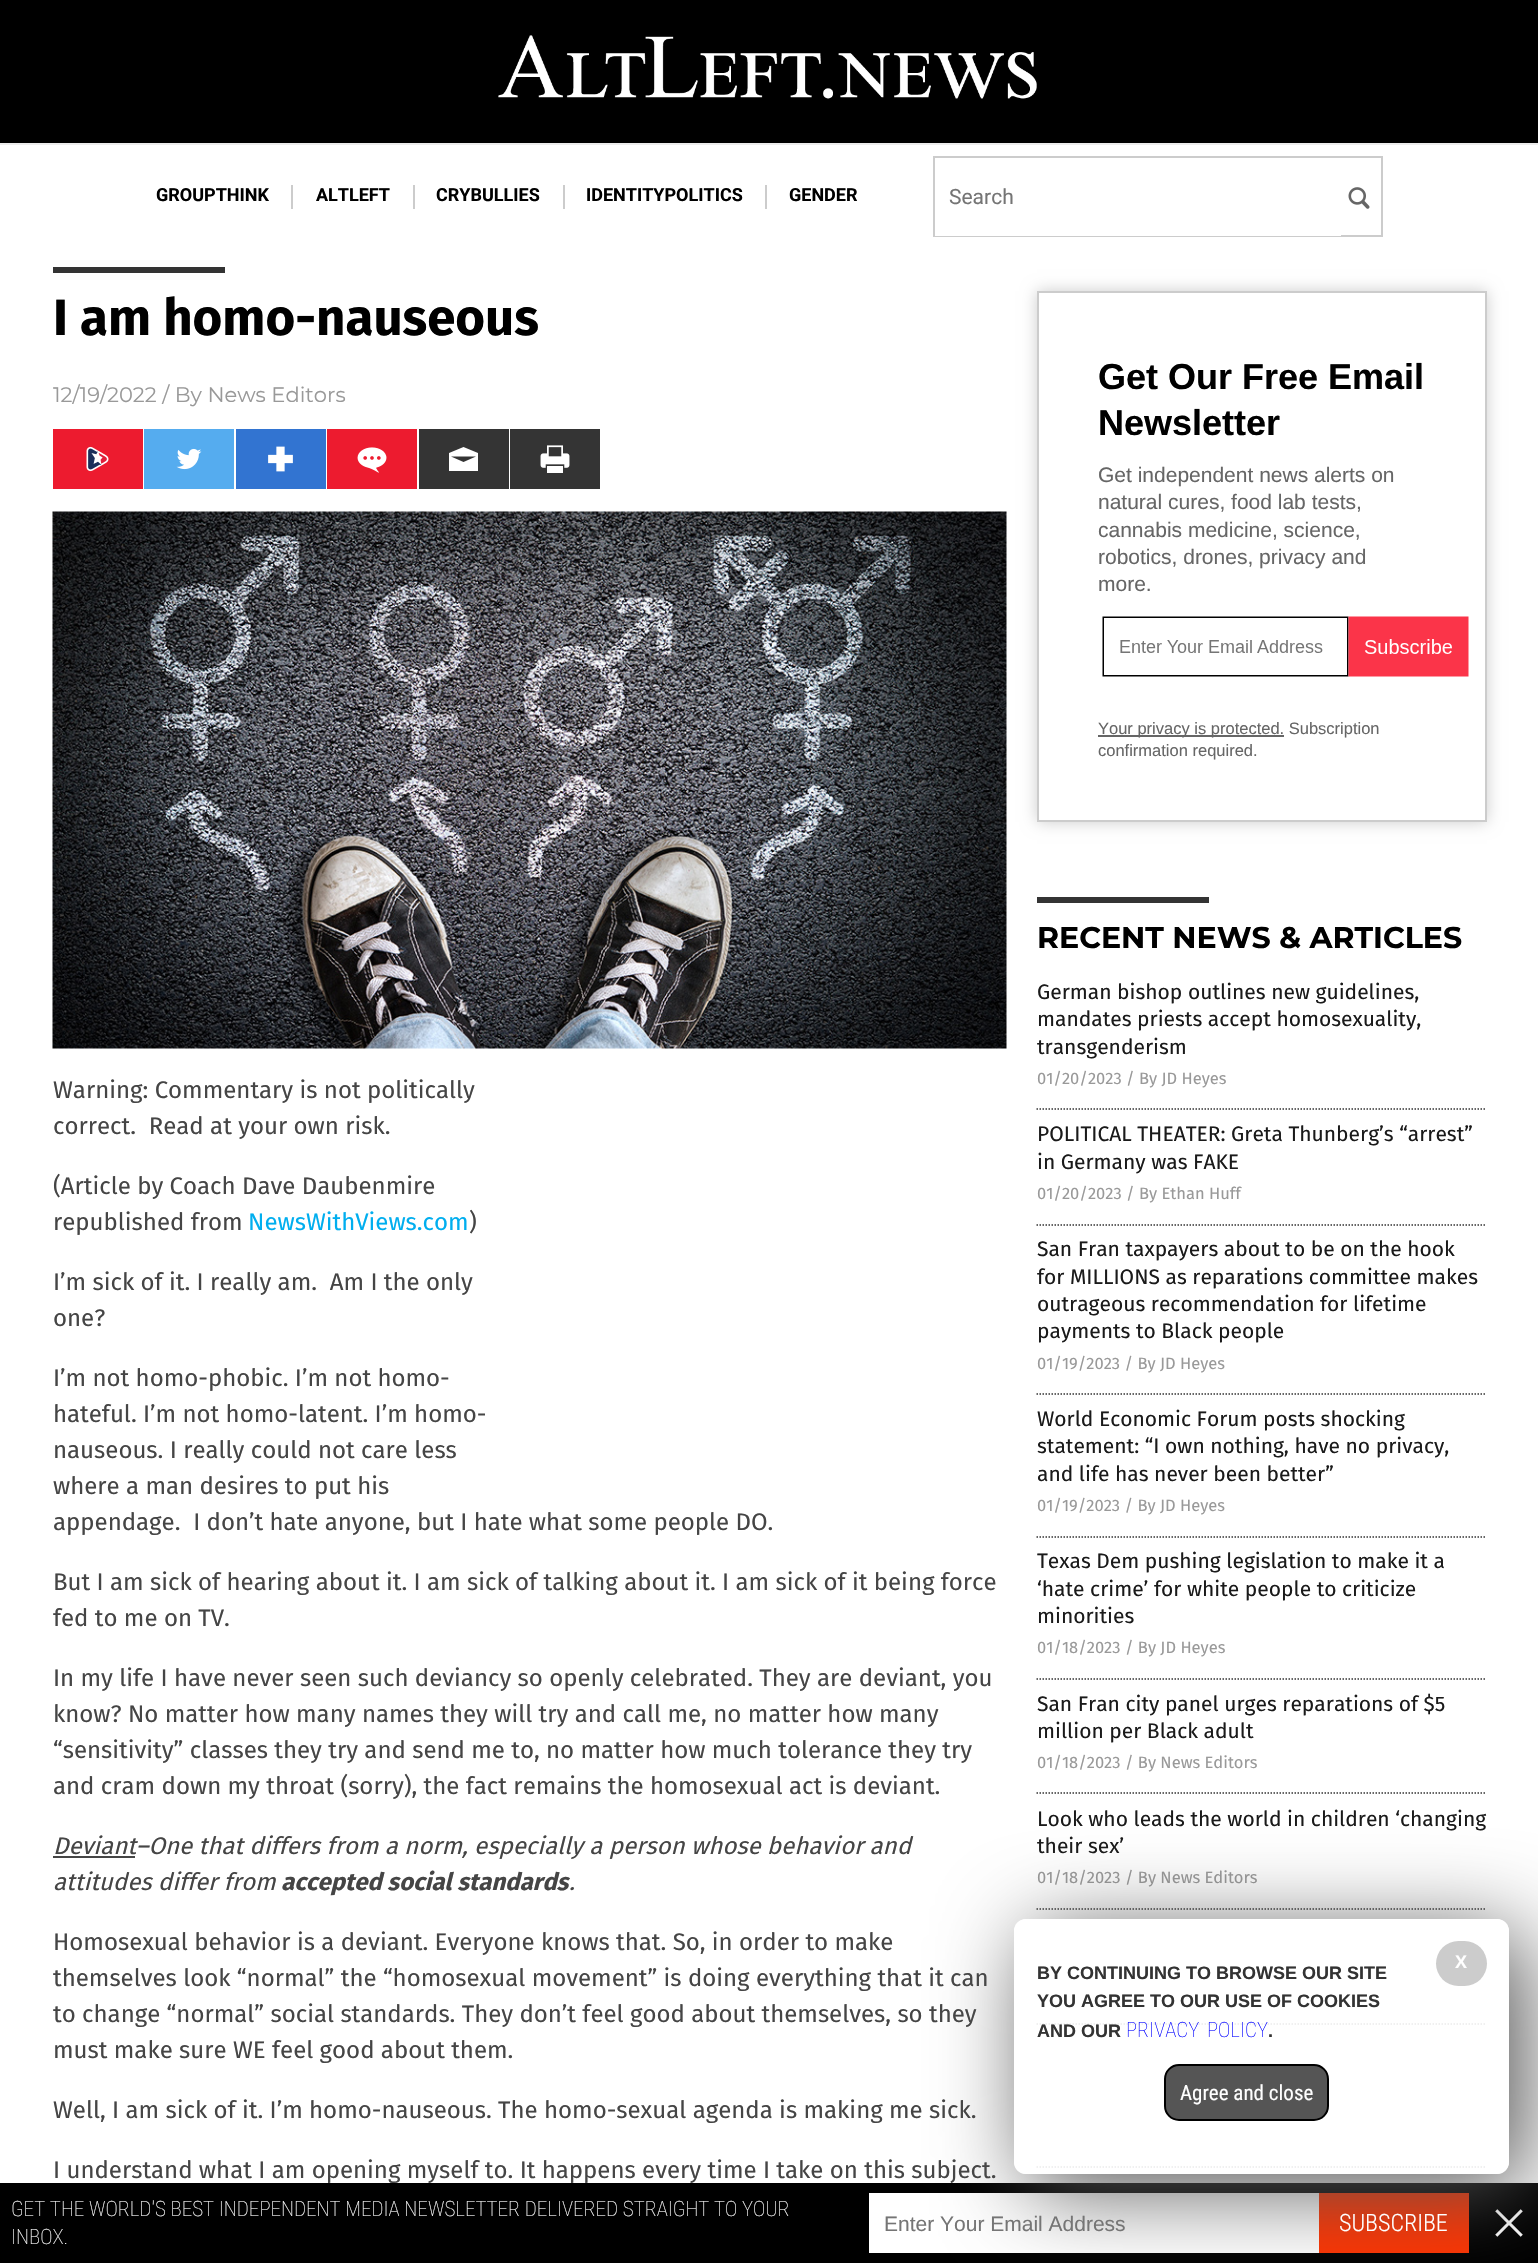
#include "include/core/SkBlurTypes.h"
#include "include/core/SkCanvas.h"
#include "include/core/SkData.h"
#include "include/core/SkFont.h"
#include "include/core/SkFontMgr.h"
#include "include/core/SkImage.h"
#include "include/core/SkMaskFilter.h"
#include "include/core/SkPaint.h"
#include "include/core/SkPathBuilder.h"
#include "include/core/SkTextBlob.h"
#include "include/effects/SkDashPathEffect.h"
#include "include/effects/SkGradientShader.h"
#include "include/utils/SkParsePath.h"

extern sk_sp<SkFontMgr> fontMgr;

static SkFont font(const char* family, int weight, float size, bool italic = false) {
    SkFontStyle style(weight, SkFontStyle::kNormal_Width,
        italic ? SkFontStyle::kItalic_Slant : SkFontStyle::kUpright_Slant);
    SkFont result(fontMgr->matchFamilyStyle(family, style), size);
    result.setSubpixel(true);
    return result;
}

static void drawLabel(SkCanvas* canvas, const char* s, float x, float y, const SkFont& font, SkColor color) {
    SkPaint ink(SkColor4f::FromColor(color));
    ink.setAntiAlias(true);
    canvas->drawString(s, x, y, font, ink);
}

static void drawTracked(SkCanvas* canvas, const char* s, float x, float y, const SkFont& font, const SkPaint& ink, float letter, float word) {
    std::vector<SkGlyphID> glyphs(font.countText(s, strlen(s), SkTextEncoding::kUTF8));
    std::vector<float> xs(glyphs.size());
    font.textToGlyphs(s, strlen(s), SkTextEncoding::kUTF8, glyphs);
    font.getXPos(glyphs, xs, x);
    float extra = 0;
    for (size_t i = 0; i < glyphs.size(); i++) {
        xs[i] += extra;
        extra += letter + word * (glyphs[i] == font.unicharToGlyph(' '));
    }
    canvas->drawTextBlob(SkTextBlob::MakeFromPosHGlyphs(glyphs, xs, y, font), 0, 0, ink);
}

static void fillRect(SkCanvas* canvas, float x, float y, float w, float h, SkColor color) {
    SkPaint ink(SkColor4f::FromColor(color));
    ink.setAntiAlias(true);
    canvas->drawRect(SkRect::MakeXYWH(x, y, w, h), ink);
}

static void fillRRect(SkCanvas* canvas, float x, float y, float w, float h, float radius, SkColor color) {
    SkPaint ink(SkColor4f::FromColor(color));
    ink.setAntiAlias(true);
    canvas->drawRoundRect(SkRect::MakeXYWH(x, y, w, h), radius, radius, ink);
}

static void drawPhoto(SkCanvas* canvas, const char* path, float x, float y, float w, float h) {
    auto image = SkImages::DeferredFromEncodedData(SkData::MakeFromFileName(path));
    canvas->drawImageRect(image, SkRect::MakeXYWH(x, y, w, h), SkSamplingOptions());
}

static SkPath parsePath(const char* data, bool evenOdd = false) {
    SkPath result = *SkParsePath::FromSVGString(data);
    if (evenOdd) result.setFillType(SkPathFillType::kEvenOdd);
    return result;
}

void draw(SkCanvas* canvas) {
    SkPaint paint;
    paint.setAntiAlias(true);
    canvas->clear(0xFF000000);
    drawPhoto(canvas, "assets/img1.png", 498, 35, 539, 64);
    fillRect(canvas, 0, 145, 1538, 2038, 0xFFFFFFFF);
    fillRect(canvas, 0, 143, 1538, 2, 0xFFECECEC);
    fillRect(canvas, 291, 185, 2, 24, 0xFFCCCCCC);
    SkFont font1 = font("Roboto", 700, 18);
    drawLabel(canvas, "GROUPTHINK", 156, 201, font1, 0xFF000000);
    fillRect(canvas, 413, 185, 2, 24, 0xFFCCCCCC);
    drawLabel(canvas, "ALTLEFT", 316, 201, font1, 0xFF000000);
    fillRect(canvas, 563, 185, 2, 24, 0xFFCCCCCC);
    drawLabel(canvas, "CRYBULLIES", 436, 201, font1, 0xFF000000);
    fillRect(canvas, 765, 185, 2, 24, 0xFFCCCCCC);
    drawLabel(canvas, "IDENTITYPOLITICS", 586, 201, font1, 0xFF000000);
    drawLabel(canvas, "GENDER", 789, 201, font1, 0xFF000000);
    paint.setStroke(true);
    paint.setStrokeWidth(2);
    paint.setColor(0xFFCCCCCC);
    canvas->drawRect(SkRect::MakeXYWH(934, 157, 448, 79), paint);
    fillRect(canvas, 935, 235, 406, 1, 0xFFFFFFFF);
    SkFont font2 = font("Roboto", 400, 21);
    drawLabel(canvas, "Search", 949, 204, font2, 0xFF757575);
    drawPhoto(canvas, "assets/img2.png", 1348, 187, 22, 22);
    fillRect(canvas, 53, 267, 172, 6, 0xFF333333);
    SkFont font3 = font("Fira Sans", 700, 51);
    drawLabel(canvas, "I am homo-nauseous", 53, 335, font3, 0xFF000000);
    SkFont font4 = font("Montserrat", 400, 21);
    drawLabel(canvas, "12/19/2022 / By News Editors", 53, 402, font4, 0xFF999999);
    fillRect(canvas, 53, 429, 90, 60, 0xFFED1B2F);
    drawPhoto(canvas, "assets/img3.png", 86, 446, 23, 26);
    fillRect(canvas, 144, 429, 90, 60, 0xFF55ACEF);
    drawPhoto(canvas, "assets/img4.png", 176, 448, 26, 22);
    fillRect(canvas, 236, 429, 90, 60, 0xFF3274D1);
    drawPhoto(canvas, "assets/img5.png", 268, 446, 25, 26);
    fillRect(canvas, 327, 429, 90, 60, 0xFFED1B2F);
    drawPhoto(canvas, "assets/img6.png", 357, 447, 30, 26);
    fillRect(canvas, 419, 429, 90, 60, 0xFF343434);
    paint.setStroke(false);
    paint.setColor(0xFFFFFFFF);
    canvas->drawPath(parsePath("M463.5 447L449 453V471H478V453ZM463.5 462L451 456.5H476Z"), paint);
    fillRect(canvas, 510, 429, 90, 60, 0xFF343434);
    drawPhoto(canvas, "assets/img7.png", 540, 445, 30, 28);
    drawPhoto(canvas, "assets/img8.png", 52, 511, 955, 538);
    SkFont font5 = font("Fira Sans", 400, 24);
    drawLabel(canvas, "Warning: Commentary is not politically", 53, 1098, font5, 0xFF454545);
    drawLabel(canvas, "correct.  Read at your own risk.", 53, 1134, font5, 0xFF454545);
    drawLabel(canvas, "(Article by Coach Dave Daubenmire", 53, 1194, font5, 0xFF454545);
    drawLabel(canvas, "republished from", 53, 1230, font5, 0xFF454545);
    drawLabel(canvas, "NewsWithViews.com", 248, 1230, font5, 0xFF00AEEF);
    drawLabel(canvas, ")", 469, 1230, font5, 0xFF454545);
    drawLabel(canvas, "I’m sick of it. I really am.  Am I the only", 53, 1290, font5, 0xFF454545);
    drawLabel(canvas, "one?", 53, 1326, font5, 0xFF454545);
    drawLabel(canvas, "I’m not homo-phobic. I’m not homo-", 53, 1386, font5, 0xFF454545);
    drawLabel(canvas, "hateful. I’m not homo-latent. I’m homo-", 53, 1422, font5, 0xFF454545);
    drawLabel(canvas, "nauseous. I really could not care less", 53, 1458, font5, 0xFF454545);
    drawLabel(canvas, "where a man desires to put his", 53, 1494, font5, 0xFF454545);
    drawLabel(canvas, "appendage.  I don’t hate anyone, but I hate what some people DO.", 53, 1530, font5, 0xFF454545);
    drawLabel(canvas, "But I am sick of hearing about it. I am sick of talking about it. I am sick of it being force", 53, 1590, font5, 0xFF454545);
    drawLabel(canvas, "fed to me on TV.", 53, 1626, font5, 0xFF454545);
    drawLabel(canvas, "In my life I have never seen such deviancy so openly celebrated. They are deviant, you", 53, 1686, font5, 0xFF454545);
    drawLabel(canvas, "know? No matter how many names they will try and call me, no matter how many", 53, 1722, font5, 0xFF454545);
    drawLabel(canvas, "“sensitivity” classes they try and send me to, no matter how much tolerance they try", 53, 1758, font5, 0xFF454545);
    drawLabel(canvas, "and cram down my throat (sorry), the fact remains the homosexual act is deviant.", 53, 1794, font5, 0xFF454545);
    fillRect(canvas, 53, 1856, 82, 2, 0xFF454545);
    SkFont font6 = font("Fira Sans", 400, 24, true);
    drawLabel(canvas, "Deviant–One that differs from a norm, especially a person whose behavior and", 53, 1854, font6, 0xFF454545);
    drawLabel(canvas, "attitudes differ from", 53, 1890, font6, 0xFF454545);
    SkFont font7 = font("Fira Sans", 700, 24, true);
    drawLabel(canvas, "accepted social standards", 281, 1890, font7, 0xFF454545);
    drawLabel(canvas, ".", 569, 1890, font6, 0xFF454545);
    drawLabel(canvas, "Homosexual behavior is a deviant. Everyone knows that. So, in order to make", 53, 1950, font5, 0xFF454545);
    drawLabel(canvas, "themselves look “normal” the “homosexual movement” is doing everything that it can", 53, 1986, font5, 0xFF454545);
    drawLabel(canvas, "to change “normal” social standards. They don’t feel good about themselves, so they", 53, 2022, font5, 0xFF454545);
    drawLabel(canvas, "must make sure WE feel good about them.", 53, 2058, font5, 0xFF454545);
    drawLabel(canvas, "Well, I am sick of it. I’m homo-nauseous. The homo-sexual agenda is making me sick.", 53, 2118, font5, 0xFF454545);
    drawLabel(canvas, "I understand what I am opening myself to. It happens every time I take on this subject.", 53, 2178, font5, 0xFF454545);
    canvas->save();
    canvas->clipPath(parsePath("M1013 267H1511V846H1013ZM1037 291H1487V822H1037Z", true), true);
    paint.setColor(0xFFCCCCCC);
    paint.setMaskFilter(SkMaskFilter::MakeBlur(kNormal_SkBlurStyle, 7.5f));
    canvas->drawRect(SkRect::MakeXYWH(1037, 291, 450, 531), paint);
    paint.setMaskFilter(nullptr);
    canvas->restore();
    paint.setStroke(true);
    canvas->drawRect(SkRect::MakeXYWH(1038, 292, 448, 529), paint);
    SkFont font8 = font("Liberation Sans", 700, 36);
    drawLabel(canvas, "Get Our Free Email", 1098, 389, font8, 0xFF000000);
    drawLabel(canvas, "Newsletter", 1098, 435, font8, 0xFF000000);
    SkFont font9 = font("Liberation Sans", 400, 21);
    drawLabel(canvas, "Get independent news alerts on", 1098, 482, font9, 0xFF666666);
    drawLabel(canvas, "natural cures, food lab tests,", 1098, 509, font9, 0xFF666666);
    drawLabel(canvas, "cannabis medicine, science,", 1098, 537, font9, 0xFF666666);
    drawLabel(canvas, "robotics, drones, privacy and", 1098, 564, font9, 0xFF666666);
    drawLabel(canvas, "more.", 1098, 591, font9, 0xFF666666);
    drawPhoto(canvas, "assets/img9.png", 1102, 616, 367, 61);
    fillRect(canvas, 1098, 735, 186, 2, 0xFF666666);
    SkFont font10 = font("Liberation Sans", 400, 16.5f);
    drawLabel(canvas, "Your privacy is protected. Subscription", 1098, 734, font10, 0xFF666666);
    drawLabel(canvas, "confirmation required.", 1098, 756, font10, 0xFF666666);
    fillRect(canvas, 1037, 897, 172, 6, 0xFF343434);
    SkFont font11 = font("Montserrat", 700, 30);
    drawLabel(canvas, "RECENT NEWS & ARTICLES", 1037, 948, font11, 0xFF000000);
    paint.setStrokeWidth(1.5f);
    paint.setColor(0xFF343434);
    paint.setPathEffect(SkDashPathEffect::Make({{1.5f, 1.5f}}, 0));
    canvas->drawPath(parsePath("M1036.5 1109H1486.5"), paint);
    paint.setPathEffect(nullptr);
    SkFont font12 = font("Fira Sans", 400, 21);
    drawLabel(canvas, "German bishop outlines new guidelines,", 1037, 999, font12, 0xFF1A1A1A);
    drawLabel(canvas, "mandates priests accept homosexuality,", 1037, 1026, font12, 0xFF1A1A1A);
    drawLabel(canvas, "transgenderism", 1037, 1054, font12, 0xFF1A1A1A);
    SkFont font13 = font("Fira Sans", 400, 16.5f);
    drawLabel(canvas, "01/20/2023 / By JD Heyes", 1037, 1084, font13, 0xFF999999);
    paint.setPathEffect(SkDashPathEffect::Make({{1.5f, 1.5f}}, 0));
    canvas->drawPath(parsePath("M1036.5 1225H1486.5"), paint);
    paint.setPathEffect(nullptr);
    drawLabel(canvas, "POLITICAL THEATER: Greta Thunberg’s “arrest”", 1037, 1141, font12, 0xFF1A1A1A);
    drawLabel(canvas, "in Germany was FAKE", 1037, 1169, font12, 0xFF1A1A1A);
    drawLabel(canvas, "01/20/2023 / By Ethan Huff", 1037, 1199, font13, 0xFF999999);
    paint.setPathEffect(SkDashPathEffect::Make({{1.5f, 1.5f}}, 0));
    canvas->drawPath(parsePath("M1036.5 1394H1486.5"), paint);
    paint.setPathEffect(nullptr);
    drawLabel(canvas, "San Fran taxpayers about to be on the hook", 1037, 1256, font12, 0xFF1A1A1A);
    drawLabel(canvas, "for MILLIONS as reparations committee makes", 1037, 1284, font12, 0xFF1A1A1A);
    drawLabel(canvas, "outrageous recommendation for lifetime", 1037, 1311, font12, 0xFF1A1A1A);
    drawLabel(canvas, "payments to Black people", 1037, 1338, font12, 0xFF1A1A1A);
    drawLabel(canvas, "01/19/2023 / By JD Heyes", 1037, 1369, font13, 0xFF999999);
    paint.setPathEffect(SkDashPathEffect::Make({{1.5f, 1.5f}}, 0));
    canvas->drawPath(parsePath("M1036.5 1537H1486.5"), paint);
    paint.setPathEffect(nullptr);
    drawLabel(canvas, "World Economic Forum posts shocking", 1037, 1426, font12, 0xFF1A1A1A);
    drawLabel(canvas, "statement: “I own nothing, have no privacy,", 1037, 1453, font12, 0xFF1A1A1A);
    drawLabel(canvas, "and life has never been better”", 1037, 1481, font12, 0xFF1A1A1A);
    drawLabel(canvas, "01/19/2023 / By JD Heyes", 1037, 1511, font13, 0xFF999999);
    paint.setPathEffect(SkDashPathEffect::Make({{1.5f, 1.5f}}, 0));
    canvas->drawPath(parsePath("M1036.5 1679H1486.5"), paint);
    paint.setPathEffect(nullptr);
    drawLabel(canvas, "Texas Dem pushing legislation to make it a", 1037, 1568, font12, 0xFF1A1A1A);
    drawLabel(canvas, "‘hate crime’ for white people to criticize", 1037, 1596, font12, 0xFF1A1A1A);
    drawLabel(canvas, "minorities", 1037, 1623, font12, 0xFF1A1A1A);
    drawLabel(canvas, "01/18/2023 / By JD Heyes", 1037, 1653, font13, 0xFF999999);
    paint.setPathEffect(SkDashPathEffect::Make({{1.5f, 1.5f}}, 0));
    canvas->drawPath(parsePath("M1036.5 1793H1486.5"), paint);
    paint.setPathEffect(nullptr);
    drawLabel(canvas, "San Fran city panel urges reparations of $5", 1037, 1711, font12, 0xFF1A1A1A);
    drawLabel(canvas, "million per Black adult", 1037, 1738, font12, 0xFF1A1A1A);
    drawLabel(canvas, "01/18/2023 / By News Editors", 1037, 1768, font13, 0xFF999999);
    paint.setPathEffect(SkDashPathEffect::Make({{1.5f, 1.5f}}, 0));
    canvas->drawPath(parsePath("M1036.5 1909H1486.5"), paint);
    paint.setPathEffect(nullptr);
    drawLabel(canvas, "Look who leads the world in children ‘changing", 1037, 1826, font12, 0xFF1A1A1A);
    drawLabel(canvas, "their sex’", 1037, 1853, font12, 0xFF1A1A1A);
    drawLabel(canvas, "01/18/2023 / By News Editors", 1037, 1883, font13, 0xFF999999);
    paint.setPathEffect(SkDashPathEffect::Make({{1.5f, 1.5f}}, 0));
    canvas->drawPath(parsePath("M1036.5 2024H1486.5"), paint);
    paint.setPathEffect(nullptr);
    paint.setPathEffect(SkDashPathEffect::Make({{1.5f, 1.5f}}, 0));
    canvas->drawPath(parsePath("M1036.5 2167H1486.5"), paint);
    paint.setPathEffect(nullptr);
    fillRect(canvas, 869, 2193, 450, 60, 0xFFFFFFFF);
    fillRect(canvas, 1319, 2193, 150, 60, 0xFFFF3300);
    drawPhoto(canvas, "assets/img10.png", 1495, 2209, 28, 28);
    canvas->save();
    canvas->clipPath(parsePath("M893 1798H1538V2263H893ZM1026 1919H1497C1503.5 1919 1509 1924.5 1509 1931V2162C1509 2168.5 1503.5 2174 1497 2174H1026C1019.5 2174 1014 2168.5 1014 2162V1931C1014 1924.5 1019.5 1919 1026 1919Z", true), true);
    paint.setStroke(false);
    paint.setColor(0xFF555555);
    paint.setMaskFilter(SkMaskFilter::MakeBlur(kNormal_SkBlurStyle, 45));
    canvas->drawRoundRect(SkRect::MakeXYWH(1029, 1934, 495, 255), 12, 12, paint);
    paint.setMaskFilter(nullptr);
    canvas->restore();
    fillRRect(canvas, 1014, 1919, 495, 255, 12, 0xE6FFFFFF);
    fillRRect(canvas, 1436, 1941, 51, 45, 22.5f, 0xFFCCCCCC);
    SkFont font14 = font("Liberation Sans", 700, 18);
    drawLabel(canvas, "X", 1455, 1968, font14, 0xFFFFFFFF);
    drawLabel(canvas, "BY CONTINUING TO BROWSE OUR SITE", 1037, 1979, font14, 0xFF333333);
    drawLabel(canvas, "YOU AGREE TO OUR USE OF COOKIES", 1037, 2007, font14, 0xFF333333);
    drawLabel(canvas, "AND OUR", 1037, 2037, font14, 0xFF333333);
    SkFont font15 = font("Roboto Condensed", 100, 21);
    paint.setColor(0xFF0000FF);
    drawTracked(canvas, "PRIVACY POLICY", 1126, 2037, font15, paint, 0, 3);
    drawLabel(canvas, ".", 1268, 2037, font14, 0xFF333333);
    paint.setColor(0xFF555555);
    canvas->drawRoundRect(SkRect::MakeXYWH(1165, 2065, 163, 55), 14, 14, paint);
    paint.setStroke(true);
    paint.setStrokeWidth(2);
    paint.setColor(0xFF000000);
    canvas->drawRoundRect(SkRect::MakeXYWH(1165, 2065, 163, 55), 14, 14, paint);
    SkFont font16 = font("Roboto Condensed", 400, 21);
    drawLabel(canvas, "Agree and close", 1180, 2100, font16, 0xFFFFFFFF);
    fillRect(canvas, 327, 2183, 67, 1, 0xFF000000);
    drawLabel(canvas, "GET THE WORLD'S BEST INDEPENDENT MEDIA NEWSLETTER DELIVERED STRAIGHT TO YOUR", 11, 2216, font15, 0xFFFFFFFF);
    drawLabel(canvas, "INBOX.", 11, 2244, font15, 0xFFFFFFFF);
    drawLabel(canvas, "Enter Your Email Address", 884, 2231, font9, 0xFF757575);
    SkFont font17 = font("Roboto Condensed", 300, 24);
    drawLabel(canvas, "SUBSCRIBE", 1339, 2231, font17, 0xFFFFFFFF);
}
